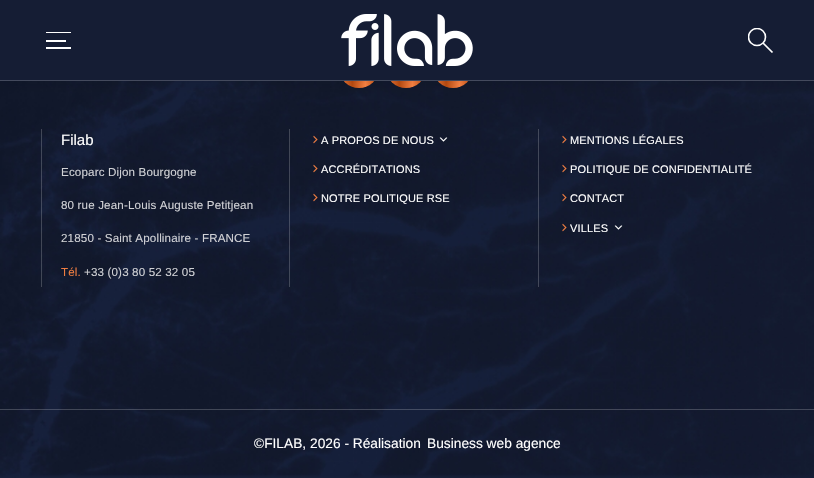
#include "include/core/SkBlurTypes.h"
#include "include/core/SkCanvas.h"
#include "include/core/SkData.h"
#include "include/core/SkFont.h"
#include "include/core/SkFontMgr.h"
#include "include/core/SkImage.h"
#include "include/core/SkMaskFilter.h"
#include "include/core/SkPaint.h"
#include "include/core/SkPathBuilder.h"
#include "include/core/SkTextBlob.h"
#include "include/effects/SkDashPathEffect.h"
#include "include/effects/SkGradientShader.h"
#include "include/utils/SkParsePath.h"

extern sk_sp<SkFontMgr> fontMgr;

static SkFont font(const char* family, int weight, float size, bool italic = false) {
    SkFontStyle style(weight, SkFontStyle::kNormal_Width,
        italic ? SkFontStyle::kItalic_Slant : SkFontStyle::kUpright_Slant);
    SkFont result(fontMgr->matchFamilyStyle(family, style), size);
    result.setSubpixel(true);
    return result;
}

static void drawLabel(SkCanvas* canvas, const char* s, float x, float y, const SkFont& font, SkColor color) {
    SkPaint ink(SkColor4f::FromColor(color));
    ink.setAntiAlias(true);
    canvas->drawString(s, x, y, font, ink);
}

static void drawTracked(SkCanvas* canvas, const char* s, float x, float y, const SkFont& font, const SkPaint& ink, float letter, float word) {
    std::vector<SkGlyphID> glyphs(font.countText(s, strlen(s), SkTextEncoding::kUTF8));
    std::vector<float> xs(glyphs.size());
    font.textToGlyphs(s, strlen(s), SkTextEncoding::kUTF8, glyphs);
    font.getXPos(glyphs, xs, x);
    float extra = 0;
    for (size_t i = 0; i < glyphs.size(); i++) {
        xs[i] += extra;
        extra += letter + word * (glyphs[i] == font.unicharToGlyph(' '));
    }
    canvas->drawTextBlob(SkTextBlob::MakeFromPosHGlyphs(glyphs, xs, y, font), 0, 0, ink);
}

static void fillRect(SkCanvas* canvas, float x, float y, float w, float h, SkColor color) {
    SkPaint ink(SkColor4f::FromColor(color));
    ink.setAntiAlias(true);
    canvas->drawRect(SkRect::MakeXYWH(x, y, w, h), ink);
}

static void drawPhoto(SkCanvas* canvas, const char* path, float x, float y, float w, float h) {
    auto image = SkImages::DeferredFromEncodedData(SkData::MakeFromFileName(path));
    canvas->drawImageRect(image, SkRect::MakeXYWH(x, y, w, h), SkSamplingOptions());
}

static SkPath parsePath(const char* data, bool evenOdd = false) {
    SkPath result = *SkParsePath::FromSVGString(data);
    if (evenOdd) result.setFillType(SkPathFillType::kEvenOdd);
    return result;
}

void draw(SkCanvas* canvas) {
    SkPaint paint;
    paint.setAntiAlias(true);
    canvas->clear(0xFFFFFFFF);
    drawPhoto(canvas, "assets/img2.png", 0, 81, 814, 397);
    {
        const SkColor colors[] = {0xFFFC8444, 0xFFB94B10, 0xFFFC8444, 0xFFB94B10};
        const float stops[] = {0, 0.33f, 0.66f, 0.99f};
        const SkPoint ends[] = {{339, 68}, {379, 68}};
        paint.setShader(SkGradientShader::MakeLinear(ends, colors, stops, 4, SkTileMode::kClamp));
        paint.setAlpha(255);
    }
    canvas->drawCircle(359, 68, 20, paint);
    {
        const SkColor colors[] = {0xFFFC8444, 0xFFB94B10, 0xFFFC8444, 0xFFB94B10};
        const float stops[] = {0, 0.33f, 0.66f, 0.99f};
        const SkPoint ends[] = {{386, 68}, {426, 68}};
        paint.setShader(SkGradientShader::MakeLinear(ends, colors, stops, 4, SkTileMode::kClamp));
        paint.setAlpha(255);
    }
    canvas->drawCircle(406, 68, 20, paint);
    {
        const SkColor colors[] = {0xFFFC8444, 0xFFB94B10, 0xFFFC8444, 0xFFB94B10};
        const float stops[] = {0, 0.33f, 0.66f, 0.99f};
        const SkPoint ends[] = {{433, 68}, {473, 68}};
        paint.setShader(SkGradientShader::MakeLinear(ends, colors, stops, 4, SkTileMode::kClamp));
        paint.setAlpha(255);
    }
    canvas->drawCircle(453, 68, 20, paint);
    paint.setShader(nullptr);
    paint.setColor(0x1A000000);
    paint.setMaskFilter(SkMaskFilter::MakeBlur(kNormal_SkBlurStyle, 7.5f));
    canvas->drawRect(SkRect::MakeXYWH(0, 0, 814, 81), paint);
    paint.setMaskFilter(nullptr);
    fillRect(canvas, 0, 80, 814, 1, 0xFF444A5D);
    fillRect(canvas, 0, 0, 814, 80, 0xFF151D34);
    fillRect(canvas, 46, 32, 25, 1, 0xFFFFFFFF);
    fillRect(canvas, 46, 40, 20, 2, 0xFFFFFFFF);
    fillRect(canvas, 46, 47, 25, 2, 0xFFFFFFFF);
    drawPhoto(canvas, "assets/img1.png", 341, 14, 132, 52);
    canvas->save();
    canvas->clipRect(SkRect::MakeXYWH(748, 28, 25, 25));
    paint.setStroke(true);
    paint.setStrokeWidth(1.6f);
    paint.setColor(0xFFFFFFFF);
    canvas->drawCircle(757, 37, 8.5f, paint);
    canvas->restore();
    paint.setStrokeWidth(1.7f);
    canvas->drawPath(parsePath("M763 43L772.5 52.5"), paint);
    fillRect(canvas, 41, 129, 1, 158, 0x33FFFFFF);
    SkFont font1 = font("Liberation Sans", 400, 15);
    drawLabel(canvas, "Filab", 61, 145, font1, 0xFFFFFFFF);
    SkFont font2 = font("Liberation Sans", 400, 11.6f);
    paint.setStroke(false);
    paint.setColor(0xFFD0D1D5);
    drawTracked(canvas, "Ecoparc Dijon Bourgogne", 61, 176, font2, paint, 0.15f, 0);
    drawTracked(canvas, "80 rue Jean-Louis Auguste Petitjean", 61, 209, font2, paint, 0.15f, 0);
    drawTracked(canvas, "21850 - Saint Apollinaire - FRANCE", 61, 242, font2, paint, 0.15f, 0);
    paint.setColor(0xFFEE7D41);
    drawTracked(canvas, "Tél.", 61, 276, font2, paint, 0.15f, 0);
    paint.setColor(0xFFD0D1D5);
    drawTracked(canvas, "+33 (0)3 80 52 32 05", 84, 276, font2, paint, 0.15f, 0);
    fillRect(canvas, 289, 129, 1, 158, 0x33FFFFFF);
    drawPhoto(canvas, "assets/img3.png", 313, 135, 5, 9);
    SkFont font3 = font("Liberation Sans", 400, 11);
    paint.setColor(0xFFFFFFFF);
    drawTracked(canvas, "A PROPOS DE NOUS", 321, 144, font3, paint, 0.15f, 0);
    drawPhoto(canvas, "assets/img4.png", 439, 137, 9, 5);
    drawPhoto(canvas, "assets/img5.png", 313, 164, 5, 9);
    drawTracked(canvas, "ACCRÉDITATIONS", 321, 173, font3, paint, 0.15f, 0);
    drawPhoto(canvas, "assets/img6.png", 313, 193, 5, 9);
    drawTracked(canvas, "NOTRE POLITIQUE RSE", 321, 202, font3, paint, 0.15f, 0);
    fillRect(canvas, 538, 129, 1, 158, 0x33FFFFFF);
    drawPhoto(canvas, "assets/img7.png", 562, 135, 5, 9);
    drawTracked(canvas, "MENTIONS LÉGALES", 570, 144, font3, paint, 0.15f, 0);
    drawPhoto(canvas, "assets/img8.png", 562, 164, 5, 9);
    drawTracked(canvas, "POLITIQUE DE CONFIDENTIALITÉ", 570, 173, font3, paint, 0.15f, 0);
    drawPhoto(canvas, "assets/img9.png", 562, 193, 5, 9);
    drawTracked(canvas, "CONTACT", 570, 202, font3, paint, 0.15f, 0);
    drawPhoto(canvas, "assets/img10.png", 562, 223, 5, 9);
    drawTracked(canvas, "VILLES", 570, 232, font3, paint, 0.15f, 0);
    drawPhoto(canvas, "assets/img11.png", 614, 225, 9, 5);
    fillRect(canvas, 0, 409, 814, 1, 0x33FFFFFF);
    SkFont font4 = font("Liberation Sans", 400, 13.75f);
    drawLabel(canvas, "©FILAB, 2026 - Réalisation", 254, 448, font4, 0xFFFFFFFF);
    drawLabel(canvas, "Business web agence", 427, 448, font4, 0xFFFFFFFF);
}
